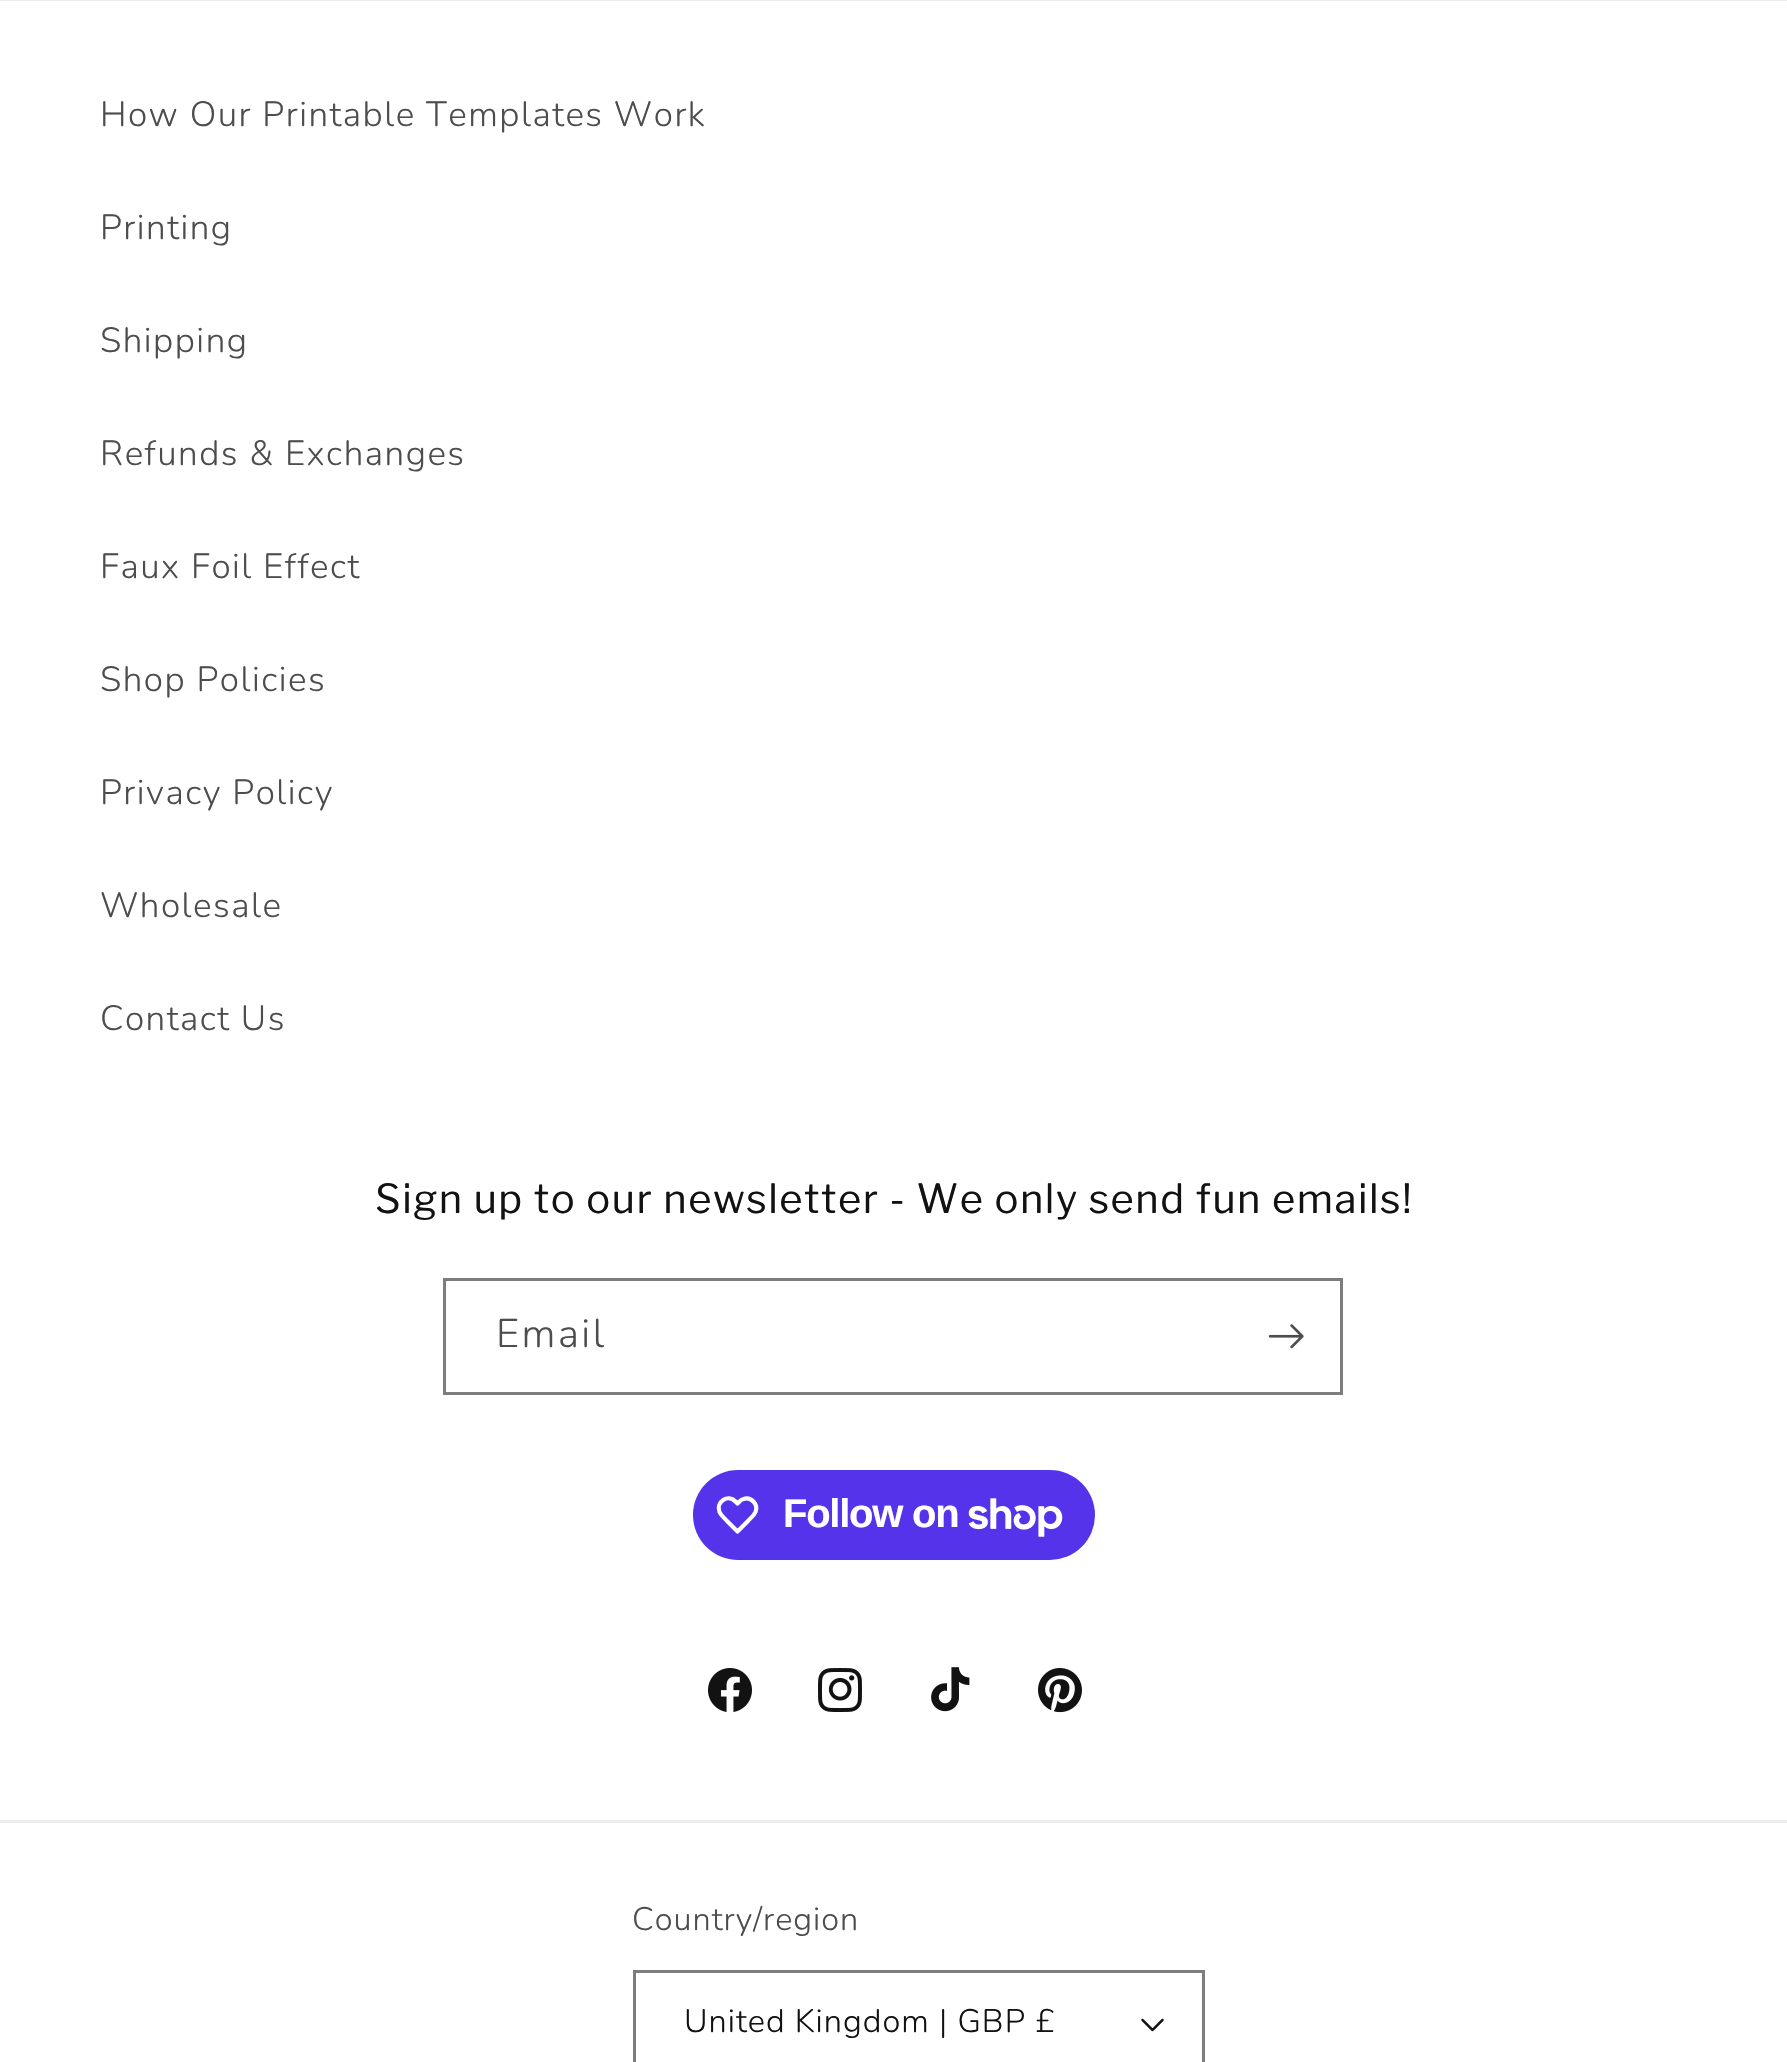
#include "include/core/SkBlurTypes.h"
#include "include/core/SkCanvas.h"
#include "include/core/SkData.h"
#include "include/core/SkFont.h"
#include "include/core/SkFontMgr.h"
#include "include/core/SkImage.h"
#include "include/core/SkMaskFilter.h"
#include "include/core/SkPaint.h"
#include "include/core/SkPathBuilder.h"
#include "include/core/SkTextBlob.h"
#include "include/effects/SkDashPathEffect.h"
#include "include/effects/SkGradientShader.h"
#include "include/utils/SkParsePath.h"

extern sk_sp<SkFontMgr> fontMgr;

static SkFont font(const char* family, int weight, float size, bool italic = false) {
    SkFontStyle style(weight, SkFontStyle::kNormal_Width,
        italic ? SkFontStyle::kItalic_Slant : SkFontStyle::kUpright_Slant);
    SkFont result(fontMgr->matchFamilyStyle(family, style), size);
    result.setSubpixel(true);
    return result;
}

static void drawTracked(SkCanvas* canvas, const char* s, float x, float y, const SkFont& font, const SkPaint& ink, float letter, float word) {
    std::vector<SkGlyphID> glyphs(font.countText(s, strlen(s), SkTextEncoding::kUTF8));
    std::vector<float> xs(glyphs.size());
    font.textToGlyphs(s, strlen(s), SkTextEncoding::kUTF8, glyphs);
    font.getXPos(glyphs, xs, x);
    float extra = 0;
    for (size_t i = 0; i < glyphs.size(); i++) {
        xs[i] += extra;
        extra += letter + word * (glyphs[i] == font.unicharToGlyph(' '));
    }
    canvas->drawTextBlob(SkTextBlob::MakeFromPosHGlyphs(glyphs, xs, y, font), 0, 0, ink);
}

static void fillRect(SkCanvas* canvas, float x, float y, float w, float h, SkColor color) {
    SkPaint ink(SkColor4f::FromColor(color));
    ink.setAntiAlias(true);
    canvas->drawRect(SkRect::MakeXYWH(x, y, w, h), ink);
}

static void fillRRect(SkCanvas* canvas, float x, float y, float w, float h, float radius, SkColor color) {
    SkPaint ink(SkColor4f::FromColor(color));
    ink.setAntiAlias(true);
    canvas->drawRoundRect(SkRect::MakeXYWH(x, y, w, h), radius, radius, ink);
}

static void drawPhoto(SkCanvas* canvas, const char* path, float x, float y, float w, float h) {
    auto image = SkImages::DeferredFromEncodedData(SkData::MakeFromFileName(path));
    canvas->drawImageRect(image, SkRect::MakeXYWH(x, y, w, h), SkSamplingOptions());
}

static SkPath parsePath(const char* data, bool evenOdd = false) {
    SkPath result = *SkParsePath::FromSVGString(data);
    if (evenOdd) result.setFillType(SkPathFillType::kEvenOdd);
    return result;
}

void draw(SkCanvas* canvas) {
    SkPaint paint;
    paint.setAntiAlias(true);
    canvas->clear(0xFFFFFFFF);
    fillRect(canvas, 0, 0, 1787, 1, 0xFFECECEC);
    SkFont font1 = font("Nunito", 300, 35);
    paint.setColor(0xFF4D4D4D);
    drawTracked(canvas, "How Our Printable Templates Work", 100, 126, font1, paint, 1.5f, 0);
    drawTracked(canvas, "Printing", 100, 239, font1, paint, 1.5f, 0);
    drawTracked(canvas, "Shipping", 100, 352, font1, paint, 1.5f, 0);
    drawTracked(canvas, "Refunds & Exchanges", 100, 465, font1, paint, 1.5f, 0);
    drawTracked(canvas, "Faux Foil Effect", 100, 578, font1, paint, 1.5f, 0);
    drawTracked(canvas, "Shop Policies", 100, 691, font1, paint, 1.5f, 0);
    drawTracked(canvas, "Privacy Policy", 100, 804, font1, paint, 1.5f, 0);
    drawTracked(canvas, "Wholesale", 100, 917, font1, paint, 1.5f, 0);
    drawTracked(canvas, "Contact Us", 100, 1030, font1, paint, 1.5f, 0);
    SkFont font2 = font("Libre Franklin", 400, 40);
    paint.setColor(0xFF121212);
    drawTracked(canvas, "Sign up to our newsletter - We only send fun emails!", 375, 1213, font2, paint, 1.5f, 0);
    paint.setStroke(true);
    paint.setStrokeWidth(3);
    paint.setColor(0xFF7D7D7D);
    canvas->drawRect(SkRect::MakeXYWH(444.5f, 1279.5f, 897, 114), paint);
    SkFont font3 = font("Nunito", 300, 40);
    paint.setStroke(false);
    paint.setColor(0xFF4D4D4D);
    drawTracked(canvas, "Email", 496, 1347, font3, paint, 2.5f, 0);
    drawPhoto(canvas, "assets/img1.png", 1268, 1324, 36, 25);
    fillRRect(canvas, 693, 1470, 402, 90, 45, 0xFF5433EB);
    paint.setStroke(true);
    paint.setStrokeWidth(4.2f);
    paint.setStrokeJoin(SkPaint::kRound_Join);
    paint.setColor(0xFFFFFFFF);
    canvas->drawPath(parsePath("M735.5 1501.5L737.5 1503.5C739.5 1501.5 741 1499.5 743.5 1499C751.5 1496.5 758.5 1504.5 755.5 1512C754 1515.5 750.5 1518 748 1521L737.5 1531.5L727 1521C724.5 1518 721 1515.5 719.5 1512C715.5 1502 728 1493.5 735.5 1501.5Z"), paint);
    SkFont font4 = font("Liberation Sans", 700, 40);
    paint.setStroke(false);
    drawTracked(canvas, "Follow on", 783, 1527, font4, paint, -1.25f, 0);
    drawPhoto(canvas, "assets/img2.png", 968, 1498, 95, 39);
    drawPhoto(canvas, "assets/img3.png", 708, 1668, 44, 44);
    drawPhoto(canvas, "assets/img4.png", 818, 1668, 44, 44);
    drawPhoto(canvas, "assets/img5.png", 931, 1667, 39, 45);
    drawPhoto(canvas, "assets/img6.png", 1038, 1668, 44, 45);
    fillRect(canvas, 0, 1820, 1787, 3, 0xFFECECEC);
    SkFont font5 = font("Nunito", 300, 32.5f);
    paint.setColor(0xFF4D4D4D);
    drawTracked(canvas, "Country/region", 632, 1930, font5, paint, 1, 0);
    drawPhoto(canvas, "assets/img7.png", 1141, 2018, 23, 14);
    paint.setStroke(true);
    paint.setStrokeWidth(3);
    paint.setStrokeJoin(SkPaint::kMiter_Join);
    paint.setColor(0xFF7D7D7D);
    canvas->drawRect(SkRect::MakeXYWH(634.5f, 1971.5f, 569, 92), paint);
    paint.setStroke(false);
    paint.setColor(0xFF121212);
    drawTracked(canvas, "United Kingdom | GBP £", 684, 2032, font5, paint, 1, 0);
}
